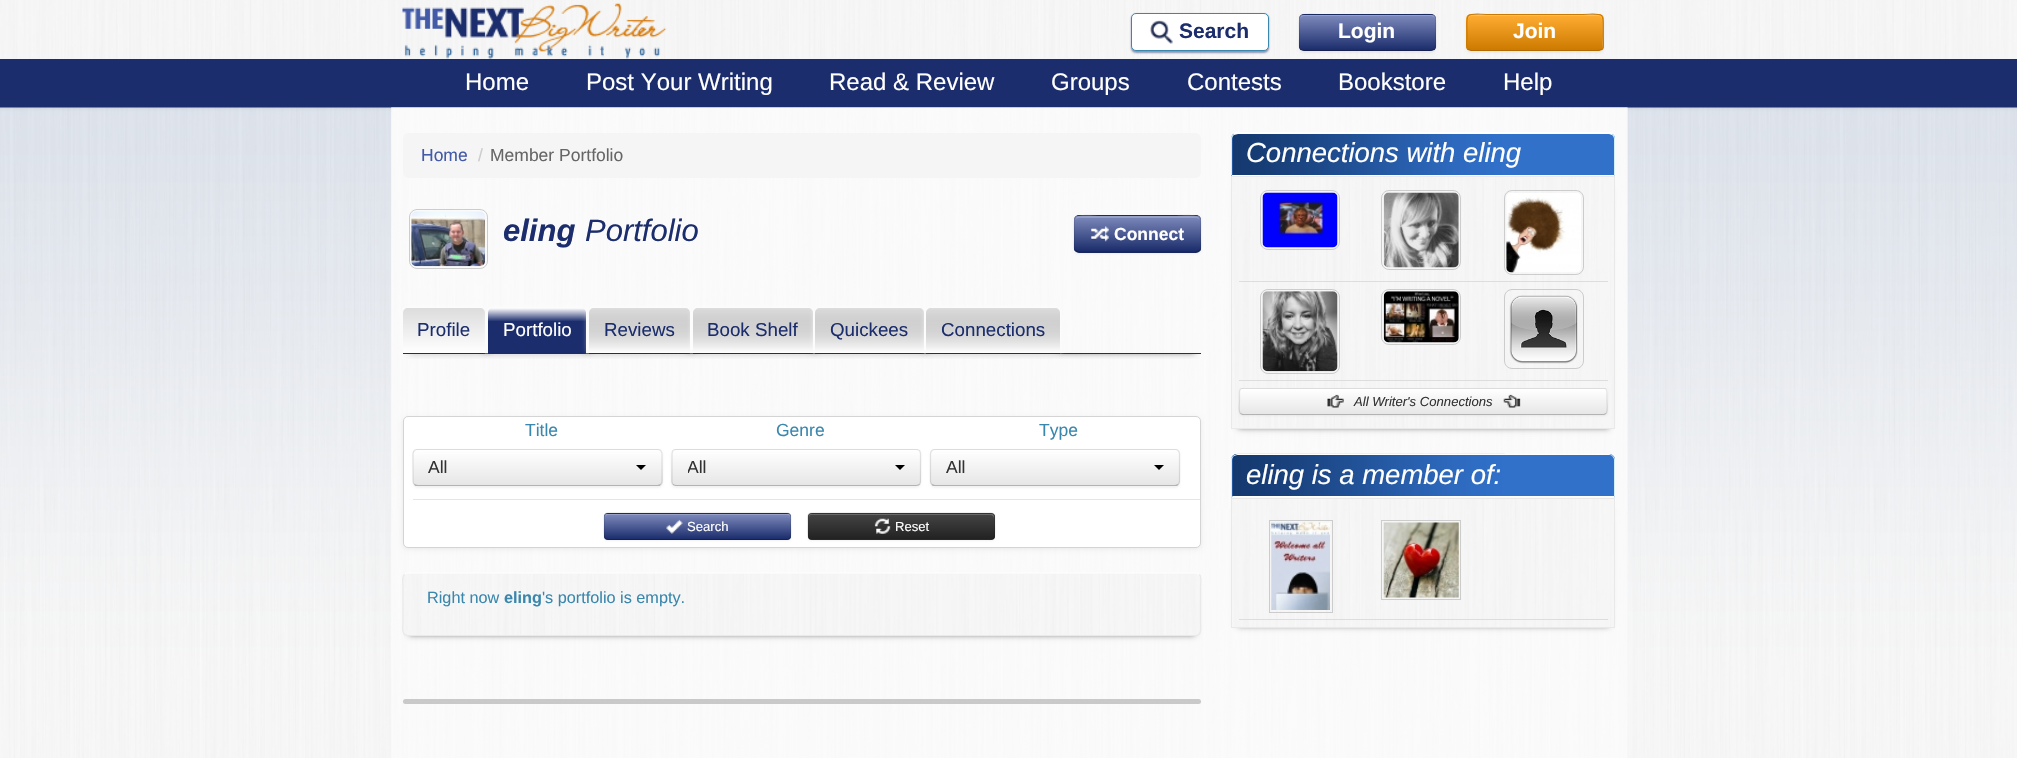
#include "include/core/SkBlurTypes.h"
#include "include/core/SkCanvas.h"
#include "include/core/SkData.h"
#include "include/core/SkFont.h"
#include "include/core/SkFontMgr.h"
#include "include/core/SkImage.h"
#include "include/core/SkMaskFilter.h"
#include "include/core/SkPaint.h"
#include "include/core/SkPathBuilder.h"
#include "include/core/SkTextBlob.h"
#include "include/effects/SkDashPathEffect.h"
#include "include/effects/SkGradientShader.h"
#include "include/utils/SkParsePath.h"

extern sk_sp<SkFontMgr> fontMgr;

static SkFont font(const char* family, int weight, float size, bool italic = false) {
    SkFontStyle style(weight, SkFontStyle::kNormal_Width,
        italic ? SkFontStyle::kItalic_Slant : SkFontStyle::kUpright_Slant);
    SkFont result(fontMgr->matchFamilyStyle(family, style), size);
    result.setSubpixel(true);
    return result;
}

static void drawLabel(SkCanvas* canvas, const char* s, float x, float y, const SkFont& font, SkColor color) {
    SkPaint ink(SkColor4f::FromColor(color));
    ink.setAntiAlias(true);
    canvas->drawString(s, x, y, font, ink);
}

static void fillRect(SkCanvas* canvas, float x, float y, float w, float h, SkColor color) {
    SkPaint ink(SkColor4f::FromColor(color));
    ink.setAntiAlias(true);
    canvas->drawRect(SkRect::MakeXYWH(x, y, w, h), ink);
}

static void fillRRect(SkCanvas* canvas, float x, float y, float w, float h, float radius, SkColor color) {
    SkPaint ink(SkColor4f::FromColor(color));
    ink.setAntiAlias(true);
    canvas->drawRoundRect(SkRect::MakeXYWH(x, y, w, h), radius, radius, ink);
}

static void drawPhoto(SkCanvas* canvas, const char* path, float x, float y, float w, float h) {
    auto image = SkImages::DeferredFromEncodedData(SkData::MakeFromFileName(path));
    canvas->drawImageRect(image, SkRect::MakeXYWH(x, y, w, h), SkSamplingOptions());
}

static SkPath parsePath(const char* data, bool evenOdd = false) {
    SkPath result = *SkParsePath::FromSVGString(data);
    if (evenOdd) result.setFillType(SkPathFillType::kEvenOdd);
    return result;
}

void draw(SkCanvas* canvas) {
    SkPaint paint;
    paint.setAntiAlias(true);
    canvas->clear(0xFFFFFFFF);
    drawPhoto(canvas, "assets/img1.png", 0, 0, 2017, 59);
    drawPhoto(canvas, "assets/img2.png", 789, 0, 597, 58);
    drawPhoto(canvas, "assets/img3.png", 402, 3, 265, 56);
    paint.setColor(0x801B2D6B);
    paint.setMaskFilter(SkMaskFilter::MakeBlur(kNormal_SkBlurStyle, 1));
    canvas->drawRoundRect(SkRect::MakeXYWH(1131, 14, 138, 39), 5, 5, paint);
    paint.setMaskFilter(nullptr);
    paint.setColor(0xFFFFFFFF);
    canvas->drawRoundRect(SkRect::MakeXYWH(1131.5f, 13.5f, 137, 37), 4.5f, 4.5f, paint);
    paint.setStroke(true);
    paint.setStrokeWidth(1);
    paint.setColor(0xFF3A87AD);
    canvas->drawRoundRect(SkRect::MakeXYWH(1131.5f, 13.5f, 137, 37), 4.5f, 4.5f, paint);
    drawPhoto(canvas, "assets/img4.png", 1150, 20, 23, 24);
    SkFont font1 = font("Liberation Sans", 700, 21);
    drawLabel(canvas, "Search", 1179, 38, font1, 0xFF1B2D6C);
    paint.setStroke(false);
    paint.setColor(0x0D000000);
    paint.setMaskFilter(SkMaskFilter::MakeBlur(kNormal_SkBlurStyle, 1));
    canvas->drawRoundRect(SkRect::MakeXYWH(1299, 15, 137, 38), 5, 5, paint);
    paint.setMaskFilter(nullptr);
    fillRRect(canvas, 1299, 14, 137, 37, 5, 0xFF1B2D6C);
    canvas->save();
    canvas->clipPath(parsePath("M1304 14H1431C1434 14 1436 16 1436 19V46C1436 49 1434 51 1431 51H1304C1301 51 1299 49 1299 46V19C1299 16 1301 14 1304 14Z"), true);
    {
        const SkColor colors[] = {0xFF7E8ABC, 0xFF1B2D6C};
        const float stops[] = {0, 1};
        const SkPoint ends[] = {{1368, 15}, {1368, 50}};
        paint.setShader(SkGradientShader::MakeLinear(ends, colors, stops, 2, SkTileMode::kClamp));
        paint.setAlpha(255);
    }
    canvas->drawRect(SkRect::MakeXYWH(1299, 15, 137, 35), paint);
    canvas->restore();
    paint.setShader(nullptr);
    paint.setColor(0x33FFFFFF);
    canvas->drawPath(parsePath("M1304 16H1431C1433 16 1435 18 1435 20V19C1435 17 1433 15 1431 15H1304C1302 15 1300 17 1300 19V20C1300 18 1302 16 1304 16Z"), paint);
    paint.setStroke(true);
    paint.setStrokeWidth(1.2f);
    paint.setColor(0x40000000);
    canvas->drawPath(parsePath("M1434.5 49.5L1431 50.5H1303.5L1300.5 49.5"), paint);
    paint.setColor(0x1A000000);
    canvas->drawPath(parsePath("M1300.5 49.5C1298 46.5 1299.5 40 1299.5 37C1299.5 9.5 1295 14.5 1325 14.5H1410C1440 14.5 1435.5 9.5 1435.5 37C1435.5 40 1437 46.5 1434.5 49.5"), paint);
    drawLabel(canvas, "Login", 1338, 38, font1, 0xFFFFFFFF);
    paint.setStroke(false);
    paint.setColor(0x0D000000);
    paint.setMaskFilter(SkMaskFilter::MakeBlur(kNormal_SkBlurStyle, 1));
    canvas->drawRoundRect(SkRect::MakeXYWH(1466, 15, 138, 38), 5, 5, paint);
    paint.setMaskFilter(nullptr);
    canvas->save();
    canvas->clipPath(parsePath("M1471 14H1599C1602 14 1604 16 1604 19V46C1604 49 1602 51 1599 51H1471C1468 51 1466 49 1466 46V19C1466 16 1468 14 1471 14Z"), true);
    {
        const SkColor colors[] = {0xFFFFAD32, 0xFFCC7A00};
        const float stops[] = {0, 1};
        const SkPoint ends[] = {{1535, 15}, {1535, 50}};
        paint.setShader(SkGradientShader::MakeLinear(ends, colors, stops, 2, SkTileMode::kClamp));
        paint.setAlpha(255);
    }
    canvas->drawRect(SkRect::MakeXYWH(1466, 15, 138, 35), paint);
    canvas->restore();
    paint.setShader(nullptr);
    paint.setColor(0x33FFFFFF);
    canvas->drawPath(parsePath("M1471 16H1599C1604 16 1602 27 1602 29V49C1603 48 1603 47 1603 46V19C1603 17 1601 15 1599 15H1472C1470 15 1468 17 1468 19V20C1468 18 1469 16 1471 16Z"), paint);
    paint.setStroke(true);
    paint.setColor(0xFFB36B00);
    canvas->drawPath(parsePath("M1602 49.5L1599 50.5H1492.5H1471L1468 49.5"), paint);
    paint.setColor(0xFFCC7A00);
    canvas->drawPath(parsePath("M1468 49.5C1465.5 46.5 1467 40 1467 37C1467 9.5 1462.5 14.5 1492.5 14.5H1577.5C1607.5 14.5 1603 9.5 1603 37C1603 40 1604.5 46.5 1602 49.5"), paint);
    drawLabel(canvas, "Join", 1513, 38, font1, 0xFFFFFFFF);
    fillRect(canvas, 0, 59, 2017, 49, 0xFF1B2D6C);
    SkFont font2 = font("Liberation Sans", 400, 24);
    drawLabel(canvas, "Home", 465, 90, font2, 0xFFFFFFFF);
    drawLabel(canvas, "Post Your Writing", 586, 90, font2, 0xFFFFFFFF);
    drawLabel(canvas, "Read & Review", 829, 90, font2, 0xFFFFFFFF);
    drawLabel(canvas, "Groups", 1051, 90, font2, 0xFFFFFFFF);
    drawLabel(canvas, "Contests", 1187, 90, font2, 0xFFFFFFFF);
    drawLabel(canvas, "Bookstore", 1338, 90, font2, 0xFFFFFFFF);
    drawLabel(canvas, "Help", 1503, 90, font2, 0xFFFFFFFF);
    drawPhoto(canvas, "assets/img5.png", 0, 107, 2017, 651);
    drawPhoto(canvas, "assets/img6.png", 391, 107, 1237, 651);
    fillRRect(canvas, 403, 133, 798, 45, 6, 0xFFF5F5F5);
    SkFont font3 = font("Liberation Sans", 400, 17.5f);
    drawLabel(canvas, "Home", 421, 161, font3, 0xFF425AA7);
    drawLabel(canvas, "/", 478, 161, font3, 0xFFCCCCCC);
    drawLabel(canvas, "Member Portfolio", 490, 161, font3, 0xFF666666);
    paint.setStrokeWidth(1);
    paint.setColor(0xFFCCCCCC);
    canvas->drawRoundRect(SkRect::MakeXYWH(409.5f, 209.5f, 78, 59), 7.5f, 7.5f, paint);
    drawPhoto(canvas, "assets/img7.png", 411, 211, 74, 56);
    SkFont font4 = font("Liberation Sans", 700, 31, true);
    drawLabel(canvas, "eling", 503, 241, font4, 0xFF1B2D6C);
    SkFont font5 = font("Liberation Sans", 400, 31, true);
    drawLabel(canvas, "Portfolio", 585, 241, font5, 0xFF1B2D6C);
    paint.setStroke(false);
    paint.setColor(0x0D000000);
    paint.setMaskFilter(SkMaskFilter::MakeBlur(kNormal_SkBlurStyle, 1));
    canvas->drawRoundRect(SkRect::MakeXYWH(1074, 216, 127, 38), 5, 5, paint);
    paint.setMaskFilter(nullptr);
    fillRRect(canvas, 1074, 215, 127, 38, 5, 0xFF1B2D6C);
    canvas->save();
    canvas->clipPath(parsePath("M1079 215H1196C1199 215 1201 217 1201 220V248C1201 251 1199 253 1196 253H1079C1076 253 1074 251 1074 248V220C1074 217 1076 215 1079 215Z"), true);
    {
        const SkColor colors[] = {0xFF7E8ABC, 0xFF1B2D6C};
        const float stops[] = {0, 1};
        const SkPoint ends[] = {{1138, 216}, {1138, 251}};
        paint.setShader(SkGradientShader::MakeLinear(ends, colors, stops, 2, SkTileMode::kClamp));
        paint.setAlpha(255);
    }
    canvas->drawRect(SkRect::MakeXYWH(1074, 216, 127, 35), paint);
    canvas->restore();
    paint.setShader(nullptr);
    paint.setColor(0x33FFFFFF);
    canvas->drawPath(parsePath("M1079 218H1196C1198 218 1200 219 1200 221C1200 211 1179 216 1176 216H1098C1096 216 1075 211 1075 221C1075 219 1077 218 1079 218Z"), paint);
    paint.setStroke(true);
    paint.setStrokeWidth(1.2f);
    paint.setColor(0x40000000);
    canvas->drawPath(parsePath("M1199.5 250.5L1196 252H1078.5L1075.5 250.5"), paint);
    paint.setColor(0x1A000000);
    canvas->drawPath(parsePath("M1075.5 250.5C1073 248 1074.5 241.5 1074.5 238.5C1074.5 211.5 1070 215.5 1098.5 215.5H1176.5C1205 215.5 1200.5 211.5 1200.5 238.5C1200.5 241.5 1202 248 1199.5 250.5"), paint);
    drawPhoto(canvas, "assets/img8.png", 1091, 226, 18, 16);
    SkFont font6 = font("Liberation Sans", 700, 17.5f);
    drawLabel(canvas, "Connect", 1114, 240, font6, 0xFFFFFFFF);
    canvas->save();
    canvas->clipRect(SkRect::MakeXYWH(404, 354, 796, 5));
    paint.setStroke(false);
    paint.setColor(0xFF777777);
    paint.setMaskFilter(SkMaskFilter::MakeBlur(kNormal_SkBlurStyle, 3));
    canvas->drawRect(SkRect::MakeXYWH(409, 306, 786, 47), paint);
    paint.setMaskFilter(nullptr);
    canvas->restore();
    fillRect(canvas, 485, 353, 716, 1, 0xFF1B2D6C);
    paint.setColor(0xFFFFFFFF);
    paint.setMaskFilter(SkMaskFilter::MakeBlur(kNormal_SkBlurStyle, 3));
    canvas->drawRoundRect(SkRect::MakeXYWH(403, 308, 82, 46), 5, 5, paint);
    paint.setMaskFilter(nullptr);
    {
        const SkColor colors[] = {0xFFDCDCDC, 0xFFFFFFFF};
        const float stops[] = {0, 1};
        const SkPoint ends[] = {{444, 308}, {444, 353}};
        paint.setShader(SkGradientShader::MakeLinear(ends, colors, stops, 2, SkTileMode::kClamp));
        paint.setAlpha(255);
    }
    canvas->drawPath(parsePath("M408 308H480C483 308 485 310 485 313V353H403V313C403 310 405 308 408 308Z"), paint);
    fillRect(canvas, 403, 353, 82, 1, 0xFF1B2D6C);
    SkFont font7 = font("Liberation Sans", 400, 18.75f);
    drawLabel(canvas, "Profile", 417, 336, font7, 0xFF1B2D6C);
    paint.setShader(nullptr);
    paint.setColor(0xFFFFFFFF);
    paint.setMaskFilter(SkMaskFilter::MakeBlur(kNormal_SkBlurStyle, 3));
    canvas->drawRoundRect(SkRect::MakeXYWH(488, 308, 98, 46), 5, 5, paint);
    paint.setMaskFilter(nullptr);
    {
        const SkColor colors[] = {0xFFFFFFFF, 0xFF1B2D6C};
        const float stops[] = {0, 0.3f};
        const SkPoint ends[] = {{537, 308}, {537, 353}};
        paint.setShader(SkGradientShader::MakeLinear(ends, colors, stops, 2, SkTileMode::kClamp));
        paint.setAlpha(255);
    }
    canvas->drawPath(parsePath("M493 308H581C584 308 586 310 586 313V353H488V313C488 310 490 308 493 308Z"), paint);
    fillRect(canvas, 488, 353, 98, 1, 0xFF1B2D6C);
    drawLabel(canvas, "Portfolio", 503, 336, font7, 0xFFFFFFFF);
    paint.setShader(nullptr);
    paint.setColor(0xFFFFFFFF);
    paint.setMaskFilter(SkMaskFilter::MakeBlur(kNormal_SkBlurStyle, 3));
    canvas->drawRoundRect(SkRect::MakeXYWH(589, 308, 101, 46), 5, 5, paint);
    paint.setMaskFilter(nullptr);
    paint.setColor(0xFFF5F5F5);
    canvas->drawPath(parsePath("M594 308H685C688 308 690 310 690 313V354H589V313C589 310 591 308 594 308Z"), paint);
    {
        const SkColor colors[] = {0x337A7A7A, 0xFFFFFFFF};
        const float stops[] = {0, 1};
        const SkPoint ends[] = {{639, 308}, {639, 353}};
        paint.setShader(SkGradientShader::MakeLinear(ends, colors, stops, 2, SkTileMode::kClamp));
        paint.setAlpha(255);
    }
    canvas->drawPath(parsePath("M594 308H685C688 308 690 310 690 313V353H589V313C589 310 591 308 594 308Z"), paint);
    fillRect(canvas, 589, 353, 101, 1, 0xFF1B2D6C);
    drawLabel(canvas, "Reviews", 604, 336, font7, 0xFF1B2D6C);
    paint.setShader(nullptr);
    paint.setColor(0xFFFFFFFF);
    paint.setMaskFilter(SkMaskFilter::MakeBlur(kNormal_SkBlurStyle, 3));
    canvas->drawRoundRect(SkRect::MakeXYWH(693, 308, 120, 46), 5, 5, paint);
    paint.setMaskFilter(nullptr);
    paint.setColor(0xFFF5F5F5);
    canvas->drawPath(parsePath("M698 308H808C811 308 813 310 813 313V354H693V313C693 310 695 308 698 308Z"), paint);
    {
        const SkColor colors[] = {0x337A7A7A, 0xFFFFFFFF};
        const float stops[] = {0, 1};
        const SkPoint ends[] = {{753, 308}, {753, 353}};
        paint.setShader(SkGradientShader::MakeLinear(ends, colors, stops, 2, SkTileMode::kClamp));
        paint.setAlpha(255);
    }
    canvas->drawPath(parsePath("M698 308H808C811 308 813 310 813 313V353H693V313C693 310 695 308 698 308Z"), paint);
    fillRect(canvas, 693, 353, 120, 1, 0xFF1B2D6C);
    drawLabel(canvas, "Book Shelf", 707, 336, font7, 0xFF1B2D6C);
    paint.setShader(nullptr);
    paint.setColor(0xFFFFFFFF);
    paint.setMaskFilter(SkMaskFilter::MakeBlur(kNormal_SkBlurStyle, 3));
    canvas->drawRoundRect(SkRect::MakeXYWH(815, 308, 109, 46), 5, 5, paint);
    paint.setMaskFilter(nullptr);
    paint.setColor(0xFFF5F5F5);
    canvas->drawPath(parsePath("M820 308H919C922 308 924 310 924 313V354H815V313C815 310 817 308 820 308Z"), paint);
    {
        const SkColor colors[] = {0x337A7A7A, 0xFFFFFFFF};
        const float stops[] = {0, 1};
        const SkPoint ends[] = {{869, 308}, {869, 353}};
        paint.setShader(SkGradientShader::MakeLinear(ends, colors, stops, 2, SkTileMode::kClamp));
        paint.setAlpha(255);
    }
    canvas->drawPath(parsePath("M820 308H919C922 308 924 310 924 313V353H815V313C815 310 817 308 820 308Z"), paint);
    fillRect(canvas, 815, 353, 109, 1, 0xFF1B2D6C);
    drawLabel(canvas, "Quickees", 830, 336, font7, 0xFF1B2D6C);
    paint.setShader(nullptr);
    paint.setColor(0xFFFFFFFF);
    paint.setMaskFilter(SkMaskFilter::MakeBlur(kNormal_SkBlurStyle, 3));
    canvas->drawRoundRect(SkRect::MakeXYWH(926, 308, 134, 46), 5, 5, paint);
    paint.setMaskFilter(nullptr);
    paint.setColor(0xFFF5F5F5);
    canvas->drawPath(parsePath("M931 308H1055C1058 308 1060 310 1060 313V354H926V313C926 310 928 308 931 308Z"), paint);
    {
        const SkColor colors[] = {0x337A7A7A, 0xFFFFFFFF};
        const float stops[] = {0, 1};
        const SkPoint ends[] = {{993, 308}, {993, 353}};
        paint.setShader(SkGradientShader::MakeLinear(ends, colors, stops, 2, SkTileMode::kClamp));
        paint.setAlpha(255);
    }
    canvas->drawPath(parsePath("M931 308H1055C1058 308 1060 310 1060 313V353H926V313C926 310 928 308 931 308Z"), paint);
    fillRect(canvas, 926, 353, 134, 1, 0xFF1B2D6C);
    drawLabel(canvas, "Connections", 941, 336, font7, 0xFF1B2D6C);
    paint.setShader(nullptr);
    paint.setColor(0x12000000);
    paint.setMaskFilter(SkMaskFilter::MakeBlur(kNormal_SkBlurStyle, 2.5f));
    canvas->drawRoundRect(SkRect::MakeXYWH(403, 418, 798, 131), 5, 5, paint);
    paint.setMaskFilter(nullptr);
    paint.setColor(0xFFFFFFFF);
    canvas->drawRoundRect(SkRect::MakeXYWH(403.5f, 416.5f, 797, 131), 4.5f, 4.5f, paint);
    paint.setStroke(true);
    paint.setStrokeWidth(1);
    paint.setColor(0xFFD4D4D4);
    canvas->drawRoundRect(SkRect::MakeXYWH(403.5f, 416.5f, 797, 131), 4.5f, 4.5f, paint);
    drawLabel(canvas, "Title", 525, 436, font3, 0xFF3A87AD);
    paint.setStroke(false);
    paint.setColor(0x0D000000);
    paint.setMaskFilter(SkMaskFilter::MakeBlur(kNormal_SkBlurStyle, 1));
    canvas->drawRoundRect(SkRect::MakeXYWH(413, 450, 250, 38), 5, 5, paint);
    paint.setMaskFilter(nullptr);
    fillRRect(canvas, 413, 449, 250, 37, 5, 0xFFF5F5F5);
    canvas->save();
    canvas->clipPath(parsePath("M418 449H658C661 449 663 451 663 454V481C663 484 661 486 658 486H418C415 486 413 484 413 481V454C413 451 415 449 418 449Z"), true);
    {
        const SkColor colors[] = {0xFFFFFFFF, 0xFFE6E6E6};
        const float stops[] = {0, 1};
        const SkPoint ends[] = {{538, 450}, {538, 485}};
        paint.setShader(SkGradientShader::MakeLinear(ends, colors, stops, 2, SkTileMode::kClamp));
        paint.setAlpha(255);
    }
    canvas->drawRect(SkRect::MakeXYWH(413, 450, 250, 35), paint);
    canvas->restore();
    paint.setStroke(true);
    paint.setStrokeWidth(1.2f);
    paint.setShader(nullptr);
    paint.setColor(0xFFB3B3B3);
    canvas->drawPath(parsePath("M660.5 484.5C660 485 658.5 485.5 657.5 485.5H417.5C416.5 485.5 415 485 414.5 484.5"), paint);
    paint.setColor(0x1A000000);
    canvas->drawPath(parsePath("M414.5 484.5C413.5 483.5 413 482.5 413 481V454C413 452.5 413.5 451.5 414.5 450.5C415 450 416.5 449.5 417.5 449.5H657.5C658.5 449.5 660 450 660.5 450.5C661.5 451.5 662 452.5 662 454V481C662 482.5 661.5 483.5 660.5 484.5"), paint);
    drawLabel(canvas, "All", 428, 473, font3, 0xFF333333);
    paint.setStroke(false);
    paint.setColor(0xFF000000);
    canvas->drawPath(parsePath("M636 465H646L641 470Z"), paint);
    drawLabel(canvas, "Genre", 776, 436, font3, 0xFF3A87AD);
    paint.setColor(0x0D000000);
    paint.setMaskFilter(SkMaskFilter::MakeBlur(kNormal_SkBlurStyle, 1));
    canvas->drawRoundRect(SkRect::MakeXYWH(671, 450, 250, 38), 5, 5, paint);
    paint.setMaskFilter(nullptr);
    fillRRect(canvas, 671, 449, 250, 37, 5, 0xFFF5F5F5);
    canvas->save();
    canvas->clipPath(parsePath("M676 449H916C919 449 921 451 921 454V481C921 484 919 486 916 486H676C673 486 671 484 671 481V454C671 451 673 449 676 449Z"), true);
    {
        const SkColor colors[] = {0xFFFFFFFF, 0xFFE6E6E6};
        const float stops[] = {0, 1};
        const SkPoint ends[] = {{796, 450}, {796, 485}};
        paint.setShader(SkGradientShader::MakeLinear(ends, colors, stops, 2, SkTileMode::kClamp));
        paint.setAlpha(255);
    }
    canvas->drawRect(SkRect::MakeXYWH(671, 450, 250, 35), paint);
    canvas->restore();
    paint.setStroke(true);
    paint.setShader(nullptr);
    paint.setColor(0xFFB3B3B3);
    canvas->drawPath(parsePath("M919.5 484.5C918.5 485 917.5 485.5 916 485.5H676C675 485.5 674 485 673 484.5"), paint);
    paint.setColor(0x1A000000);
    canvas->drawPath(parsePath("M673 484.5C672.5 483.5 672 482.5 672 481V454C672 452.5 672.5 451.5 673 450.5C674 450 675 449.5 676 449.5H916C917.5 449.5 918.5 450 919.5 450.5C920 451.5 920.5 452.5 920.5 454V481C920.5 482.5 920 483.5 919.5 484.5"), paint);
    canvas->save();
    canvas->clipRect(SkRect::MakeXYWH(688, 455, 201, 25));
    drawLabel(canvas, "All", 687, 473, font3, 0xFF333333);
    canvas->restore();
    paint.setStroke(false);
    paint.setColor(0xFF000000);
    canvas->drawPath(parsePath("M895 465H905L900 470Z"), paint);
    drawLabel(canvas, "Type", 1039, 436, font3, 0xFF3A87AD);
    paint.setColor(0x0D000000);
    paint.setMaskFilter(SkMaskFilter::MakeBlur(kNormal_SkBlurStyle, 1));
    canvas->drawRoundRect(SkRect::MakeXYWH(930, 450, 250, 38), 5, 5, paint);
    paint.setMaskFilter(nullptr);
    fillRRect(canvas, 930, 449, 250, 37, 5, 0xFFF5F5F5);
    canvas->save();
    canvas->clipPath(parsePath("M935 449H1175C1178 449 1180 451 1180 454V481C1180 484 1178 486 1175 486H935C932 486 930 484 930 481V454C930 451 932 449 935 449Z"), true);
    {
        const SkColor colors[] = {0xFFFFFFFF, 0xFFE6E6E6};
        const float stops[] = {0, 1};
        const SkPoint ends[] = {{1055, 450}, {1055, 485}};
        paint.setShader(SkGradientShader::MakeLinear(ends, colors, stops, 2, SkTileMode::kClamp));
        paint.setAlpha(255);
    }
    canvas->drawRect(SkRect::MakeXYWH(930, 450, 250, 35), paint);
    canvas->restore();
    paint.setStroke(true);
    paint.setShader(nullptr);
    paint.setColor(0xFFB3B3B3);
    canvas->drawPath(parsePath("M1178 484.5C1177.5 485 1176 485.5 1175 485.5H935C934 485.5 932.5 485 932 484.5"), paint);
    paint.setColor(0x1A000000);
    canvas->drawPath(parsePath("M932 484.5C931 483.5 930.5 482.5 930.5 481V454C930.5 452.5 931 451.5 932 450.5C932.5 450 934 449.5 935 449.5H1175C1176 449.5 1177.5 450 1178 450.5C1179 451.5 1179.5 452.5 1179.5 454V481C1179.5 482.5 1179 483.5 1178 484.5"), paint);
    drawLabel(canvas, "All", 946, 473, font3, 0xFF333333);
    paint.setStroke(false);
    paint.setColor(0xFF000000);
    canvas->drawPath(parsePath("M1154 465H1164L1159 470Z"), paint);
    fillRect(canvas, 413, 499, 787, 1, 0xFFE5E5E5);
    paint.setColor(0x0D000000);
    paint.setMaskFilter(SkMaskFilter::MakeBlur(kNormal_SkBlurStyle, 1));
    canvas->drawRoundRect(SkRect::MakeXYWH(604, 514, 187, 27), 4, 4, paint);
    paint.setMaskFilter(nullptr);
    fillRRect(canvas, 604, 513, 187, 27, 4, 0xFF1B2D6C);
    canvas->save();
    canvas->clipPath(parsePath("M608 513H787C789 513 791 515 791 517V536C791 538 789 540 787 540H608C606 540 604 538 604 536V517C604 515 606 513 608 513Z"), true);
    {
        const SkColor colors[] = {0xFF7E8ABC, 0xFF1B2D6C};
        const float stops[] = {0, 1};
        const SkPoint ends[] = {{698, 514}, {698, 539}};
        paint.setShader(SkGradientShader::MakeLinear(ends, colors, stops, 2, SkTileMode::kClamp));
        paint.setAlpha(255);
    }
    canvas->drawRect(SkRect::MakeXYWH(604, 514, 187, 25), paint);
    canvas->restore();
    paint.setShader(nullptr);
    paint.setColor(0x33FFFFFF);
    canvas->drawPath(parsePath("M608 515H788C789 515 790 516 790 518C790 516 790 514 788 514H607C605 514 605 516 605 518C605 516 606 515 608 515Z"), paint);
    paint.setStroke(true);
    paint.setColor(0x40000000);
    canvas->drawPath(parsePath("M789.5 538.5L787.5 539.5H607.5L605.5 538.5"), paint);
    paint.setColor(0x1A000000);
    canvas->drawPath(parsePath("M605.5 538.5C603 536.5 604.5 526 604.5 523C604.5 520.5 603 513 607.5 513H787.5C792 513 790.5 520.5 790.5 523C790.5 526 792 536.5 789.5 538.5"), paint);
    drawPhoto(canvas, "assets/img9.png", 666, 519, 17, 16);
    SkFont font8 = font("Liberation Sans", 400, 13.1f);
    drawLabel(canvas, "Search", 687, 531, font8, 0xFFFFFFFF);
    paint.setStroke(false);
    paint.setColor(0x0D000000);
    paint.setMaskFilter(SkMaskFilter::MakeBlur(kNormal_SkBlurStyle, 1));
    canvas->drawRoundRect(SkRect::MakeXYWH(808, 514, 187, 27), 4, 4, paint);
    paint.setMaskFilter(nullptr);
    fillRRect(canvas, 808, 513, 187, 27, 4, 0xFF363636);
    canvas->save();
    canvas->clipPath(parsePath("M812 513H991C993 513 995 515 995 517V536C995 538 993 540 991 540H812C810 540 808 538 808 536V517C808 515 810 513 812 513Z"), true);
    {
        const SkColor colors[] = {0xFF444444, 0xFF222222};
        const float stops[] = {0, 1};
        const SkPoint ends[] = {{901, 514}, {901, 539}};
        paint.setShader(SkGradientShader::MakeLinear(ends, colors, stops, 2, SkTileMode::kClamp));
        paint.setAlpha(255);
    }
    canvas->drawRect(SkRect::MakeXYWH(808, 514, 187, 25), paint);
    canvas->restore();
    paint.setShader(nullptr);
    paint.setColor(0xFF696969);
    canvas->drawPath(parsePath("M811 515H991L993 516L994 518C994 516 994 514 992 514H811C809 514 809 516 809 518C809 516 810 515 811 515Z"), paint);
    paint.setStroke(true);
    paint.setColor(0x40000000);
    canvas->drawPath(parsePath("M993.5 538.5L991 539.5H811L809 538.5"), paint);
    paint.setColor(0x1A000000);
    canvas->drawPath(parsePath("M809 538.5C807 536.5 808 526 808 523C808 520.5 806.5 513 811 513H991C996 513 994.5 520.5 994.5 523C994.5 526 995.5 536.5 993.5 538.5"), paint);
    drawPhoto(canvas, "assets/img10.png", 874, 518, 17, 16);
    drawLabel(canvas, "Reset", 895, 531, font8, 0xFFFFFFFF);
    paint.setStroke(false);
    paint.setColor(0xFF777777);
    paint.setMaskFilter(SkMaskFilter::MakeBlur(kNormal_SkBlurStyle, 3));
    canvas->drawRect(SkRect::MakeXYWH(409, 584, 786, 51), paint);
    paint.setMaskFilter(nullptr);
    drawPhoto(canvas, "assets/img11.png", 403, 573, 798, 63);
    paint.setStroke(true);
    paint.setColor(0xFFFFFFFF);
    canvas->drawPath(parsePath("M404.5 574.5C405 573.5 406.5 573 407.5 573H1196C1197.5 573 1198.5 573.5 1199.5 574.5"), paint);
    paint.setColor(0xFFE9E9E9);
    canvas->drawPath(parsePath("M1199.5 574.5C1202 577 1200.5 584.5 1200.5 586.5V622.5C1200.5 625.5 1202.5 635.5 1196 635.5H407.5C401 635.5 403 625.5 403 622.5V586.5C403 584.5 401.5 577 404.5 574.5"), paint);
    SkFont font9 = font("Liberation Sans", 400, 16.25f);
    drawLabel(canvas, "Right now", 427, 603, font9, 0xFF3A87AD);
    SkFont font10 = font("Liberation Sans", 700, 16.25f);
    drawLabel(canvas, "eling", 504, 603, font10, 0xFF3A87AD);
    drawLabel(canvas, "'s portfolio is empty.", 542, 603, font9, 0xFF3A87AD);
    fillRRect(canvas, 403, 699, 798, 5, 2.5f, 0xFFC9C9C9);
    paint.setStroke(false);
    paint.setColor(0xFF3171C9);
    canvas->drawPath(parsePath("M1237 133H1609C1612.5 133 1615 135.5 1615 139V176H1231V139C1231 135.5 1233.5 133 1237 133Z"), paint);
    drawPhoto(canvas, "assets/img12.png", 1232, 133, 273, 42);
    paint.setColor(0xFFFFFFFF);
    canvas->drawPath(parsePath("M1238 134L1234 135L1233 134L1235 132H1611L1613 134L1612 135L1609 134Z"), paint);
    paint.setColor(0xFFD1EFF5);
    canvas->drawPath(parsePath("M1615 176V139C1615 137 1614 135 1613 134L1612 135C1613 136 1614 137 1614 139V175Z"), paint);
    paint.setColor(0xFFFFFFFF);
    canvas->drawPath(parsePath("M1615 176H1232V175H1614Z"), paint);
    paint.setColor(0xFFD1EFF5);
    canvas->drawPath(parsePath("M1231 137L1233 134L1234 135C1233 136 1232 137 1232 139V175L1231 176Z"), paint);
    SkFont font11 = font("Liberation Sans", 400, 27.5f, true);
    drawLabel(canvas, "Connections with eling", 1246, 162, font11, 0xFFFFFFFF);
    paint.setColor(0xFF777777);
    paint.setMaskFilter(SkMaskFilter::MakeBlur(kNormal_SkBlurStyle, 3));
    canvas->drawRect(SkRect::MakeXYWH(1238, 188, 371, 240), paint);
    paint.setMaskFilter(nullptr);
    drawPhoto(canvas, "assets/img13.png", 1232, 177, 382, 251);
    paint.setStroke(true);
    paint.setStrokeWidth(1);
    paint.setColor(0xFFE9E9E9);
    canvas->drawRect(SkRect::MakeXYWH(1231.5f, 176.5f, 383, 252), paint);
    fillRect(canvas, 1239, 281, 369, 1, 0xFFDDDDDD);
    paint.setColor(0xFFCCCCCC);
    canvas->drawRoundRect(SkRect::MakeXYWH(1260.5f, 190.5f, 79, 59), 7.5f, 7.5f, paint);
    drawPhoto(canvas, "assets/img14.png", 1262, 192, 76, 56);
    canvas->drawRoundRect(SkRect::MakeXYWH(1381.5f, 190.5f, 79, 79), 7.5f, 7.5f, paint);
    drawPhoto(canvas, "assets/img15.png", 1383, 192, 76, 76);
    canvas->drawRoundRect(SkRect::MakeXYWH(1504.5f, 190.5f, 79, 84), 7.5f, 7.5f, paint);
    drawPhoto(canvas, "assets/img16.png", 1506, 193, 75, 80);
    fillRect(canvas, 1239, 380, 369, 1, 0xFFDDDDDD);
    canvas->drawRoundRect(SkRect::MakeXYWH(1260.5f, 289.5f, 79, 84), 7.5f, 7.5f, paint);
    drawPhoto(canvas, "assets/img17.png", 1262, 291, 76, 81);
    canvas->drawRoundRect(SkRect::MakeXYWH(1381.5f, 289.5f, 79, 55), 7.5f, 7.5f, paint);
    drawPhoto(canvas, "assets/img18.png", 1383, 291, 76, 52);
    canvas->drawRoundRect(SkRect::MakeXYWH(1504.5f, 289.5f, 79, 79), 7.5f, 7.5f, paint);
    drawPhoto(canvas, "assets/img19.png", 1509, 295, 69, 69);
    paint.setStroke(false);
    paint.setColor(0x0D000000);
    paint.setMaskFilter(SkMaskFilter::MakeBlur(kNormal_SkBlurStyle, 1));
    canvas->drawRoundRect(SkRect::MakeXYWH(1239, 389, 369, 27), 4, 4, paint);
    paint.setMaskFilter(nullptr);
    fillRRect(canvas, 1239, 388, 369, 27, 4, 0xFFF5F5F5);
    canvas->save();
    canvas->clipPath(parsePath("M1243 388H1604C1606 388 1608 390 1608 392V411C1608 413 1606 415 1604 415H1243C1241 415 1239 413 1239 411V392C1239 390 1241 388 1243 388Z"), true);
    {
        const SkColor colors[] = {0xFFFFFFFF, 0xFFE6E6E6};
        const float stops[] = {0, 1};
        const SkPoint ends[] = {{1423, 389}, {1423, 414}};
        paint.setShader(SkGradientShader::MakeLinear(ends, colors, stops, 2, SkTileMode::kClamp));
        paint.setAlpha(255);
    }
    canvas->drawRect(SkRect::MakeXYWH(1239, 389, 369, 25), paint);
    canvas->restore();
    paint.setStroke(true);
    paint.setStrokeWidth(1.2f);
    paint.setShader(nullptr);
    paint.setColor(0xFFB3B3B3);
    canvas->drawPath(parsePath("M1606 413.5L1604 414.5H1242.5L1240.5 413.5"), paint);
    paint.setColor(0x1A000000);
    canvas->drawPath(parsePath("M1240.5 413.5C1238 411.5 1239.5 404 1239.5 401V394.5C1239.5 392.5 1239 389.5 1241.5 388.5H1605C1607.5 389.5 1607 392.5 1607 394.5V401C1607 404 1608 411.5 1606 413.5"), paint);
    drawPhoto(canvas, "assets/img20.png", 1327, 394, 17, 14);
    SkFont font12 = font("Liberation Sans", 400, 13.1f, true);
    drawLabel(canvas, "All Writer's Connections", 1354, 406, font12, 0xFF333333);
    drawPhoto(canvas, "assets/img21.png", 1503, 394, 18, 14);
    paint.setStroke(false);
    paint.setColor(0xFF3171C9);
    canvas->drawPath(parsePath("M1237 454H1609C1612.5 454 1615 456.5 1615 460V498H1231V460C1231 456.5 1233.5 454 1237 454Z"), paint);
    drawPhoto(canvas, "assets/img22.png", 1232, 453, 273, 44);
    paint.setColor(0xFFFFFFFF);
    canvas->drawPath(parsePath("M1238 454C1236 454 1234 455 1233 456H1234L1237 455H1609C1610 455 1612 455 1612 456H1613C1612 455 1610 454 1609 454Z"), paint);
    paint.setColor(0xFFD1EFF5);
    canvas->drawPath(parsePath("M1613 456C1614 457 1615 458 1615 460V498L1614 496V460C1614 458 1613 457 1612 456Z"), paint);
    paint.setColor(0xFFFFFFFF);
    canvas->drawPath(parsePath("M1615 498L1614 496H1233L1231 498Z"), paint);
    paint.setColor(0xFFD1EFF5);
    canvas->drawPath(parsePath("M1231 498L1233 496H1232V460C1232 458 1233 457 1234 456H1233L1231 458Z"), paint);
    drawLabel(canvas, "eling is a member of:", 1246, 484, font11, 0xFFFFFFFF);
    paint.setColor(0xFF777777);
    paint.setMaskFilter(SkMaskFilter::MakeBlur(kNormal_SkBlurStyle, 3));
    canvas->drawRect(SkRect::MakeXYWH(1238, 509, 371, 117), paint);
    paint.setMaskFilter(nullptr);
    drawPhoto(canvas, "assets/img23.png", 1231, 497, 384, 130);
    paint.setStroke(true);
    paint.setStrokeWidth(1);
    paint.setColor(0xFFE9E9E9);
    canvas->drawRect(SkRect::MakeXYWH(1231.5f, 498.5f, 383, 129), paint);
    fillRect(canvas, 1239, 619, 369, 1, 0xFFDDDDDD);
    paint.setColor(0xFFCCCCCC);
    canvas->drawRect(SkRect::MakeXYWH(1269.5f, 520.5f, 63, 92), paint);
    drawPhoto(canvas, "assets/img24.png", 1271, 522, 59, 88);
    canvas->drawRect(SkRect::MakeXYWH(1381.5f, 520.5f, 79, 79), paint);
    drawPhoto(canvas, "assets/img25.png", 1383, 522, 76, 76);
}
